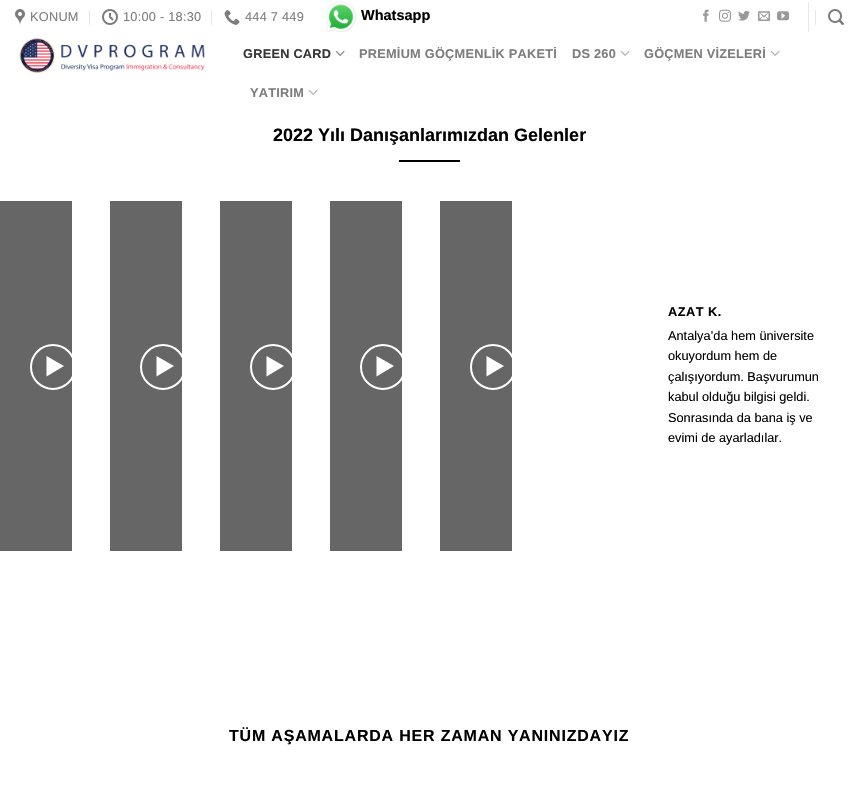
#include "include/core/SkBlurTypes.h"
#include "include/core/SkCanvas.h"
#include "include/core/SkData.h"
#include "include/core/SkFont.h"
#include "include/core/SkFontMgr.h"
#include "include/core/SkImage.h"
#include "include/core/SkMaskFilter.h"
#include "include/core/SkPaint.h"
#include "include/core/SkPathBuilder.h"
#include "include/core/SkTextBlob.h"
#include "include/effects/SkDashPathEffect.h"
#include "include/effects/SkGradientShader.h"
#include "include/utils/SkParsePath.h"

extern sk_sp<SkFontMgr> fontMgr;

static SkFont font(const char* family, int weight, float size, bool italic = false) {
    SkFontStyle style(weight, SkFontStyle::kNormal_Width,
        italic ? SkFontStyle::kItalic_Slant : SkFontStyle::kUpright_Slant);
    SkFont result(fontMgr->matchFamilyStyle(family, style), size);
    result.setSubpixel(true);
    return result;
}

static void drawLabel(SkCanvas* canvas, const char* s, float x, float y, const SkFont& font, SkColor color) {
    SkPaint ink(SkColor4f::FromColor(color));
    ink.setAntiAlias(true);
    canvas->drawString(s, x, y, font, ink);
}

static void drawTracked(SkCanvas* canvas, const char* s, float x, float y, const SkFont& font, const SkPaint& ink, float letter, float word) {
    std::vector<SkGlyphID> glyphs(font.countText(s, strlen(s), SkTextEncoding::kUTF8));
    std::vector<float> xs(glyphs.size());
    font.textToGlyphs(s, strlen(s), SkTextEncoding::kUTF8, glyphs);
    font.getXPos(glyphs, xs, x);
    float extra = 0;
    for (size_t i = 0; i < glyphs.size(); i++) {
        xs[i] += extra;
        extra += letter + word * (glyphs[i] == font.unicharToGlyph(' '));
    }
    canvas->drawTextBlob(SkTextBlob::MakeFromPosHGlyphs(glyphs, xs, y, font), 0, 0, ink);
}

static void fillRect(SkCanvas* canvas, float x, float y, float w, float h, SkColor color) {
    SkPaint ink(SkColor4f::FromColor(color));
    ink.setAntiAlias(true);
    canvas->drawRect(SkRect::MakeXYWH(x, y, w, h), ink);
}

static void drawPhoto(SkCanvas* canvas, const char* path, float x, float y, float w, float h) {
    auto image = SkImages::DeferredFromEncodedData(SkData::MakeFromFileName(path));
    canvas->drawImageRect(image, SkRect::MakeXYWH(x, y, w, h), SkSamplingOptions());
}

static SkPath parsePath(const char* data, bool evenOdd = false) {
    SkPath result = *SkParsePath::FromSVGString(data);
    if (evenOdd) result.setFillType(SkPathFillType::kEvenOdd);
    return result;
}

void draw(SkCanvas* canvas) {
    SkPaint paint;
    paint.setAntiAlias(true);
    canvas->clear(0xFFFFFFFF);
    drawPhoto(canvas, "assets/img1.png", 15, 9, 10, 16);
    SkFont font1 = font("Liberation Sans", 400, 12.75f);
    paint.setColor(0xFF7D7D7D);
    drawTracked(canvas, "KONUM", 30, 21, font1, paint, 0.25f, 0);
    fillRect(canvas, 89, 10, 1, 15, 0xFFE6E6E6);
    drawPhoto(canvas, "assets/img2.png", 102, 9, 16, 16);
    drawTracked(canvas, "10:00 - 18:30", 123, 21, font1, paint, 0.25f, 0);
    fillRect(canvas, 211, 10, 1, 15, 0xFFE6E6E6);
    drawPhoto(canvas, "assets/img3.png", 224, 10, 16, 15);
    drawTracked(canvas, "444 7 449", 245, 21, font1, paint, 0.25f, 0);
    drawPhoto(canvas, "assets/img4.png", 326, 1, 31, 31);
    SkFont font2 = font("Liberation Sans", 700, 14.5f);
    drawLabel(canvas, "Whatsapp", 361, 20, font2, 0xFF000000);
    drawPhoto(canvas, "assets/img5.png", 703, 9, 6, 13);
    drawPhoto(canvas, "assets/img6.png", 719, 9, 12, 13);
    drawPhoto(canvas, "assets/img7.png", 738, 10, 12, 11);
    drawPhoto(canvas, "assets/img8.png", 758, 11, 12, 10);
    drawPhoto(canvas, "assets/img9.png", 777, 11, 12, 10);
    fillRect(canvas, 808, 2, 1, 30, 0xFFE6E6E6);
    fillRect(canvas, 815, 10, 1, 15, 0xFFE6E6E6);
    drawPhoto(canvas, "assets/img10.png", 828, 9, 16, 16);
    drawPhoto(canvas, "assets/img11.png", 19, 37, 186, 37);
    SkFont font3 = font("Liberation Sans", 700, 12.75f);
    paint.setColor(0xFF363636);
    drawTracked(canvas, "GREEN CARD", 243, 58, font3, paint, 0.25f, 0);
    drawPhoto(canvas, "assets/img12.png", 335, 50, 10, 6);
    paint.setColor(0xFF7D7D7D);
    drawTracked(canvas, "PREMİUM GÖÇMENLİK PAKETİ", 359, 58, font3, paint, 0.25f, 0);
    drawTracked(canvas, "DS 260", 572, 58, font3, paint, 0.25f, 0);
    drawPhoto(canvas, "assets/img13.png", 620, 50, 10, 6);
    drawTracked(canvas, "GÖÇMEN VİZELERİ", 644, 58, font3, paint, 0.25f, 0);
    drawPhoto(canvas, "assets/img13.png", 770, 50, 10, 6);
    drawTracked(canvas, "YATIRIM", 250, 97, font3, paint, 0.25f, 0);
    drawPhoto(canvas, "assets/img13.png", 308, 89, 10, 6);
    SkFont font4 = font("Liberation Sans", 700, 18);
    drawLabel(canvas, "2022 Yılı Danışanlarımızdan Gelenler", 273, 141, font4, 0xFF000000);
    fillRect(canvas, 399, 160, 61, 2, 0xFF000000);
    fillRect(canvas, 0, 201, 72, 350, 0xFF666666);
    paint.setStroke(true);
    paint.setStrokeWidth(2);
    paint.setColor(0xFFFFFFFF);
    canvas->drawCircle(53, 367, 22, paint);
    paint.setStroke(false);
    canvas->drawPath(parsePath("M46.5 356L64 366L46.5 376.5Z"), paint);
    fillRect(canvas, 110, 201, 72, 350, 0xFF666666);
    paint.setStroke(true);
    canvas->drawCircle(163, 367, 22, paint);
    paint.setStroke(false);
    canvas->drawPath(parsePath("M156.5 356L174 366L156.5 376.5Z"), paint);
    fillRect(canvas, 220, 201, 72, 350, 0xFF666666);
    paint.setStroke(true);
    canvas->drawCircle(273, 367, 22, paint);
    paint.setStroke(false);
    canvas->drawPath(parsePath("M266.5 356L284 366L266.5 376.5Z"), paint);
    fillRect(canvas, 330, 201, 72, 350, 0xFF666666);
    paint.setStroke(true);
    canvas->drawCircle(383, 367, 22, paint);
    paint.setStroke(false);
    canvas->drawPath(parsePath("M376.5 356L394 366L376.5 376.5Z"), paint);
    fillRect(canvas, 440, 201, 72, 350, 0xFF666666);
    paint.setStroke(true);
    canvas->drawCircle(493, 367, 22, paint);
    paint.setStroke(false);
    canvas->drawPath(parsePath("M486.5 356L504 366L486.5 376.5Z"), paint);
    paint.setColor(0xFF000000);
    drawTracked(canvas, "AZAT K.", 668, 316, font3, paint, 0.5f, 0);
    drawLabel(canvas, "Antalya’da hem üniversite", 668, 340, font1, 0xFF000000);
    drawLabel(canvas, "okuyordum hem de", 668, 360, font1, 0xFF000000);
    drawLabel(canvas, "çalışıyordum. Başvurumun", 668, 381, font1, 0xFF000000);
    drawLabel(canvas, "kabul olduğu bilgisi geldi.", 668, 401, font1, 0xFF000000);
    drawLabel(canvas, "Sonrasında da bana iş ve", 668, 422, font1, 0xFF000000);
    drawLabel(canvas, "evimi de ayarladılar.", 668, 442, font1, 0xFF000000);
    SkFont font5 = font("Liberation Sans", 700, 16);
    drawTracked(canvas, "TÜM AŞAMALARDA HER ZAMAN YANINIZDAYIZ", 229, 741, font5, paint, 0.8f, 0);
}
